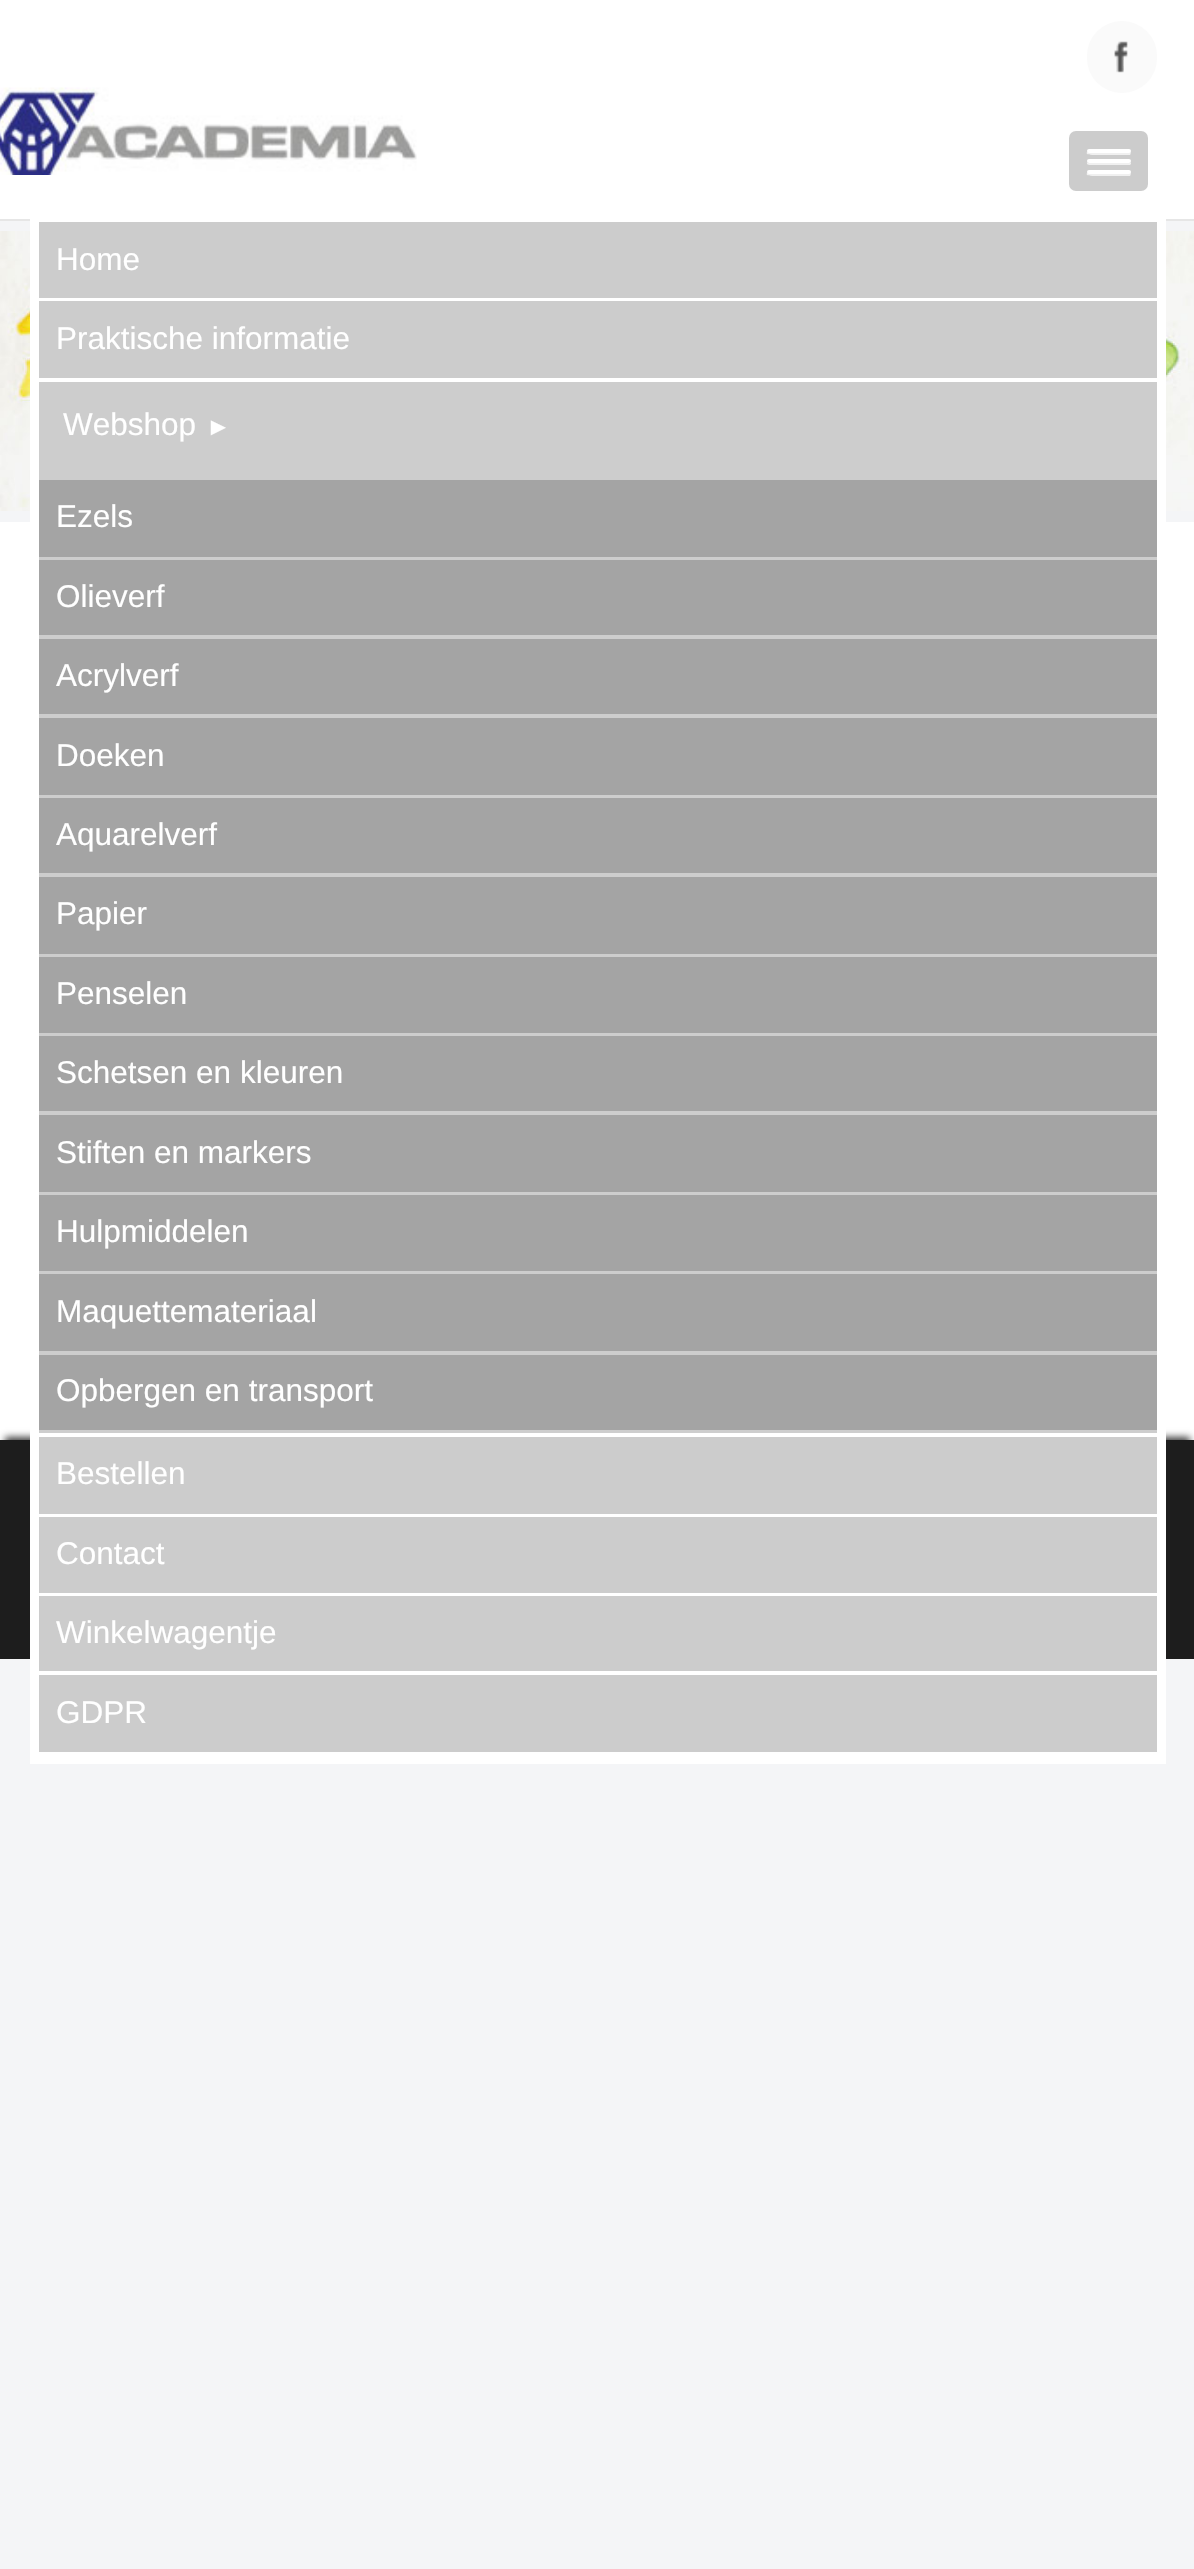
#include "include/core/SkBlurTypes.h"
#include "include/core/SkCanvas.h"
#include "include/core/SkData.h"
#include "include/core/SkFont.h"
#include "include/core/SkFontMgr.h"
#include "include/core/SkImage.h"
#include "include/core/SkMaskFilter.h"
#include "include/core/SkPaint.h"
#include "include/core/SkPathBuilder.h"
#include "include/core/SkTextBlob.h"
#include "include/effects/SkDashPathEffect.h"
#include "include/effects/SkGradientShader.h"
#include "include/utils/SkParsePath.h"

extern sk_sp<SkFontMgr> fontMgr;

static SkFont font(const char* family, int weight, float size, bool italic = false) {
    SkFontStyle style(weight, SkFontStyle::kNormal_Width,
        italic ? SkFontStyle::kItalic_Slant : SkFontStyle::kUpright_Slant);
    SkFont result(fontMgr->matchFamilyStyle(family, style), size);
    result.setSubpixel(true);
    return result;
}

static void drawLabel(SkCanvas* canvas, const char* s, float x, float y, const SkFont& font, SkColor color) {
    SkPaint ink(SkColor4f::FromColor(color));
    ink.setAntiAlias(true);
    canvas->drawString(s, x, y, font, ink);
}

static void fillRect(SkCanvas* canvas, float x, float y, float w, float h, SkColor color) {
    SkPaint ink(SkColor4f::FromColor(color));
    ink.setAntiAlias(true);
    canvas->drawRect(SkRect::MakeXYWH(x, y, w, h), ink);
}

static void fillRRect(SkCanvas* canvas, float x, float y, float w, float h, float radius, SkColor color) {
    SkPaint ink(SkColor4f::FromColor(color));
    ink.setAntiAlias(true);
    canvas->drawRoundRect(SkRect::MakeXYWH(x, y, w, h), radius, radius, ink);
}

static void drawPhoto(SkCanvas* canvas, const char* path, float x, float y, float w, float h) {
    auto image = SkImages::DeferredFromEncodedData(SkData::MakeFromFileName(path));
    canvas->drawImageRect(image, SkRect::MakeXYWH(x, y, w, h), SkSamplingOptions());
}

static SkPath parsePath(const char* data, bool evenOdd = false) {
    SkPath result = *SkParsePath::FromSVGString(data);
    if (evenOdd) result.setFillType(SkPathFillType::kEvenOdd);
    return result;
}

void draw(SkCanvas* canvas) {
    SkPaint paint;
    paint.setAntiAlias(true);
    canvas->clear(0xFFF4F5F7);
    drawPhoto(canvas, "assets/img1.png", 0, 231, 1194, 280);
    fillRect(canvas, 0, 0, 1194, 219, 0xFFFFFFFF);
    fillRect(canvas, 0, 219, 1194, 2, 0xFFE6E6E6);
    fillRRect(canvas, 1087, 21, 70, 72, 35, 0xFFFAFAFA);
    drawPhoto(canvas, "assets/img2.png", 1114, 41, 14, 32);
    drawPhoto(canvas, "assets/img3.png", 0, 87, 417, 88);
    fillRect(canvas, 0, 522, 1194, 918, 0xFFFFFFFF);
    paint.setColor(0xBF000000);
    paint.setMaskFilter(SkMaskFilter::MakeBlur(kNormal_SkBlurStyle, 3.5f));
    canvas->drawRect(SkRect::MakeXYWH(5, 1437, 1185, 208), paint);
    paint.setMaskFilter(nullptr);
    fillRect(canvas, 0, 1440, 1194, 219, 0xFF1D1D1D);
    fillRect(canvas, 30, 219, 1136, 1545, 0xFFFFFFFF);
    fillRRect(canvas, 1069, 131, 79, 60, 7, 0xFFCCCCCC);
    paint.setColor(0xFFF0F0F0);
    canvas->drawPath(parsePath("M1087 152C1085 155 1091 155 1096 155H1130C1131 154 1131 152 1130 151C1129 154 1125 152 1122 152C1118 152 1089 153 1087 152Z"), paint);
    fillRRect(canvas, 1087, 149, 44, 4, 2, 0xFFFFFFFF);
    canvas->drawPath(parsePath("M1087 162C1086 166 1091 165 1096 165H1129C1131 165 1132 163 1130 162L1129 163H1088Z"), paint);
    fillRRect(canvas, 1087, 159, 44, 4, 2, 0xFFFFFFFF);
    canvas->drawPath(parsePath("M1087 173C1085 176 1091 176 1096 176H1130C1131 175 1131 173 1130 172C1129 175 1125 173 1122 173C1118 173 1089 174 1087 173Z"), paint);
    fillRRect(canvas, 1087, 170, 44, 4, 2, 0xFFFFFFFF);
    fillRect(canvas, 39, 222, 1118, 76, 0xFFCCCCCC);
    SkFont font1 = font("Liberation Sans", 400, 31.5f);
    drawLabel(canvas, "Home", 56, 270, font1, 0xFFFFFFFF);
    fillRect(canvas, 39, 301, 1118, 77, 0xFFCCCCCC);
    drawLabel(canvas, "Praktische informatie", 56, 349, font1, 0xFFFFFFFF);
    fillRect(canvas, 39, 382, 1118, 1051, 0xFFCDCDCD);
    drawLabel(canvas, "Webshop", 63, 435, font1, 0xFFFFFFFF);
    SkFont font2 = font("Liberation Sans", 400, 25);
    drawLabel(canvas, "►", 206, 435, font2, 0xFFFFFFFF);
    fillRect(canvas, 39, 480, 1118, 77, 0xFFA4A4A4);
    drawLabel(canvas, "Ezels", 56, 527, font1, 0xFFFFFFFF);
    fillRect(canvas, 39, 560, 1118, 75, 0xFFA4A4A4);
    drawLabel(canvas, "Olieverf", 56, 607, font1, 0xFFFFFFFF);
    fillRect(canvas, 39, 639, 1118, 75, 0xFFA4A4A4);
    drawLabel(canvas, "Acrylverf", 56, 686, font1, 0xFFFFFFFF);
    fillRect(canvas, 39, 718, 1118, 77, 0xFFA4A4A4);
    drawLabel(canvas, "Doeken", 56, 766, font1, 0xFFFFFFFF);
    fillRect(canvas, 39, 798, 1118, 75, 0xFFA4A4A4);
    drawLabel(canvas, "Aquarelverf", 56, 845, font1, 0xFFFFFFFF);
    fillRect(canvas, 39, 877, 1118, 77, 0xFFA4A4A4);
    drawLabel(canvas, "Papier", 56, 924, font1, 0xFFFFFFFF);
    fillRect(canvas, 39, 957, 1118, 76, 0xFFA4A4A4);
    drawLabel(canvas, "Penselen", 56, 1004, font1, 0xFFFFFFFF);
    fillRect(canvas, 39, 1036, 1118, 75, 0xFFA4A4A4);
    drawLabel(canvas, "Schetsen en kleuren", 56, 1083, font1, 0xFFFFFFFF);
    fillRect(canvas, 39, 1115, 1118, 77, 0xFFA4A4A4);
    drawLabel(canvas, "Stiften en markers", 56, 1163, font1, 0xFFFFFFFF);
    fillRect(canvas, 39, 1195, 1118, 76, 0xFFA4A4A4);
    drawLabel(canvas, "Hulpmiddelen", 56, 1242, font1, 0xFFFFFFFF);
    fillRect(canvas, 39, 1274, 1118, 77, 0xFFA4A4A4);
    drawLabel(canvas, "Maquettemateriaal", 56, 1322, font1, 0xFFFFFFFF);
    fillRect(canvas, 39, 1355, 1118, 75, 0xFFA4A4A4);
    drawLabel(canvas, "Opbergen en transport", 56, 1401, font1, 0xFFFFFFFF);
    fillRect(canvas, 39, 1437, 1118, 77, 0xFFCCCCCC);
    drawLabel(canvas, "Bestellen", 56, 1484, font1, 0xFFFFFFFF);
    fillRect(canvas, 39, 1517, 1118, 76, 0xFFCCCCCC);
    drawLabel(canvas, "Contact", 56, 1564, font1, 0xFFFFFFFF);
    fillRect(canvas, 39, 1596, 1118, 75, 0xFFCCCCCC);
    drawLabel(canvas, "Winkelwagentje", 56, 1643, font1, 0xFFFFFFFF);
    fillRect(canvas, 39, 1675, 1118, 77, 0xFFCCCCCC);
    drawLabel(canvas, "GDPR", 56, 1723, font1, 0xFFFFFFFF);
}
